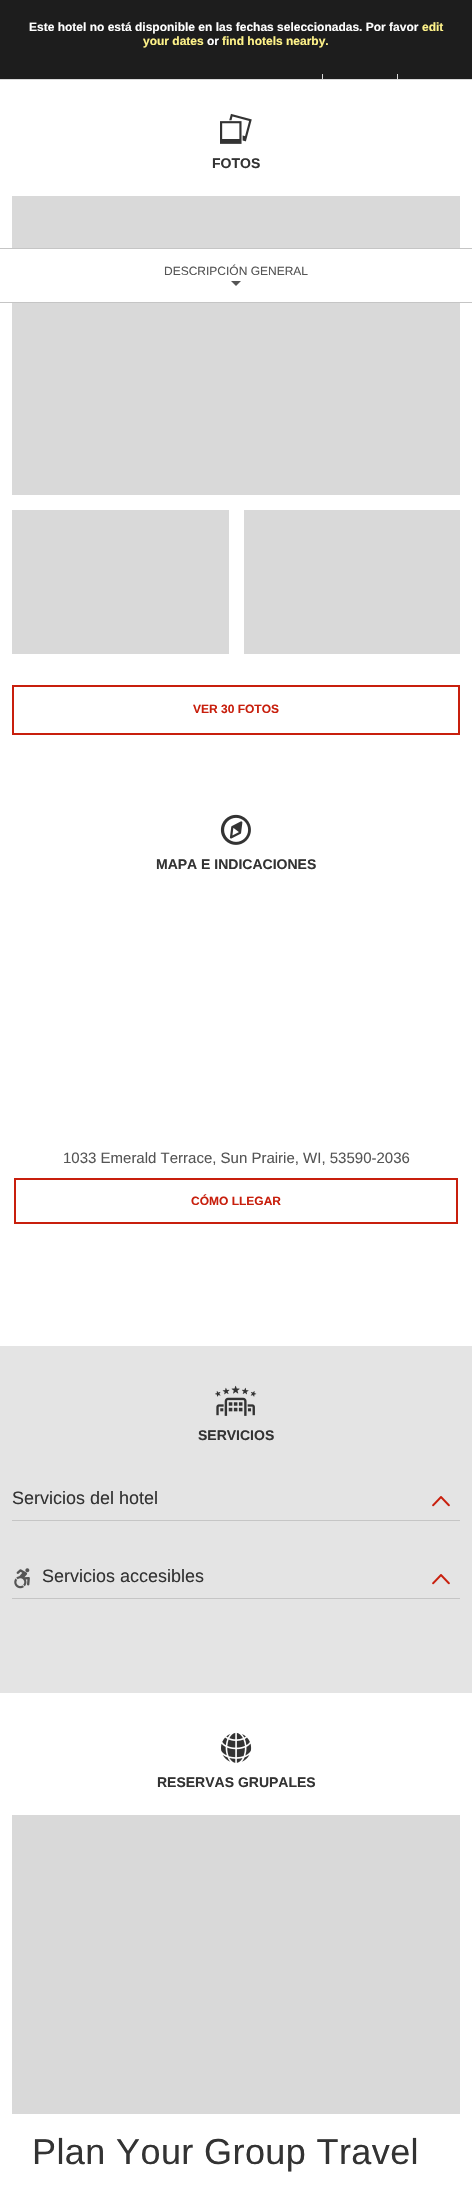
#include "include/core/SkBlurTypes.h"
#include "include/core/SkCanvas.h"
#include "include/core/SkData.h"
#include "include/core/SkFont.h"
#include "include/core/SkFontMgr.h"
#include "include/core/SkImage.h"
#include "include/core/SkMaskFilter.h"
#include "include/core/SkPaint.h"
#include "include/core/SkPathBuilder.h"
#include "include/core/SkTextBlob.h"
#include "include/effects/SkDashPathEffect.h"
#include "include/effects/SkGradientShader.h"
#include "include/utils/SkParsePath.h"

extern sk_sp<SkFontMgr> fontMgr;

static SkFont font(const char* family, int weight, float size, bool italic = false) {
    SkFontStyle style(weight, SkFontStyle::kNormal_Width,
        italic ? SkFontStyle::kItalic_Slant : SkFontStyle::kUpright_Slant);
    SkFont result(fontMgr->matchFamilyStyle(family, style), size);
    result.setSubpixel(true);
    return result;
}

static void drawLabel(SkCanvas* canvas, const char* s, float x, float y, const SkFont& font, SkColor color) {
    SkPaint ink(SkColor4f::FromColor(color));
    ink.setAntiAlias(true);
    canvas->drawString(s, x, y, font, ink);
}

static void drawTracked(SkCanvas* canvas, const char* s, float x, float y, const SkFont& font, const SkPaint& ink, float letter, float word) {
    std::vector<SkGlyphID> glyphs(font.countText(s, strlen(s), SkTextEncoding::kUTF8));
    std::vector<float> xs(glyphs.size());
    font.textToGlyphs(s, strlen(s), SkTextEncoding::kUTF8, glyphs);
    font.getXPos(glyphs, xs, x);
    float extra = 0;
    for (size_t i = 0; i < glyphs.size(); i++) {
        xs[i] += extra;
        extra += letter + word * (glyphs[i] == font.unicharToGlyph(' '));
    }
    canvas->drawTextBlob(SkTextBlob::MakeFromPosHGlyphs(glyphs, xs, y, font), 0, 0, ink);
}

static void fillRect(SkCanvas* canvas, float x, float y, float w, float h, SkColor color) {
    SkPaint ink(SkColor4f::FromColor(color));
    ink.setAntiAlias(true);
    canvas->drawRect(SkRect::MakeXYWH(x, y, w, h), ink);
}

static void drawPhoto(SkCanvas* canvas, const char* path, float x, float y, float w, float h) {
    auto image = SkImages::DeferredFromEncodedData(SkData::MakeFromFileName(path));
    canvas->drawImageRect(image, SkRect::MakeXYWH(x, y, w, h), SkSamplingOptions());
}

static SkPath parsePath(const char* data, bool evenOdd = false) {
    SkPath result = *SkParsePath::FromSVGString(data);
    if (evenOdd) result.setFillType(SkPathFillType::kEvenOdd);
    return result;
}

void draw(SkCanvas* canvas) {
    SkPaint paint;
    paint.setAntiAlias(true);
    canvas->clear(0xFFFFFFFF);
    fillRect(canvas, 0, 0, 472, 79, 0xFF1D1D1D);
    fillRect(canvas, 0, 79, 472, 1, 0xFFD9D9D9);
    fillRect(canvas, 322, 74, 1, 6, 0xFFD9D9D9);
    fillRect(canvas, 397, 74, 1, 6, 0xFFD9D9D9);
    SkFont font1 = font("Liberation Sans", 700, 12);
    drawLabel(canvas, "Este hotel no está disponible en las fechas seleccionadas. Por favor", 29, 31, font1, 0xFFFFFFFF);
    drawLabel(canvas, "edit", 422, 31, font1, 0xFFFFF389);
    drawLabel(canvas, "your dates", 143, 45, font1, 0xFFFFF389);
    drawLabel(canvas, "or", 207, 45, font1, 0xFFFFFFFF);
    drawLabel(canvas, "find hotels nearby.", 222, 45, font1, 0xFFFFF389);
    fillRect(canvas, 12, 196, 448, 299, 0xFFD9D9D9);
    fillRect(canvas, 12, 249, 448, 53, 0xFFFFFFFF);
    fillRect(canvas, 0, 248, 472, 1, 0xFFC5C5C5);
    fillRect(canvas, 0, 302, 472, 1, 0xFFC5C5C5);
    SkFont font2 = font("Liberation Sans", 400, 12);
    drawLabel(canvas, "DESCRIPCIÓN GENERAL", 164, 275, font2, 0xFF555555);
    paint.setColor(0xFF555555);
    canvas->drawPath(parsePath("M231 281H241L236 286Z"), paint);
    drawPhoto(canvas, "assets/img1.png", 220, 113, 32, 31);
    SkFont font3 = font("Liberation Sans", 700, 14);
    drawLabel(canvas, "FOTOS", 212, 168, font3, 0xFF333333);
    fillRect(canvas, 12, 510, 217, 144, 0xFFD9D9D9);
    fillRect(canvas, 244, 510, 216, 144, 0xFFD9D9D9);
    paint.setStroke(true);
    paint.setStrokeWidth(2);
    paint.setColor(0xFFC81F0D);
    canvas->drawRect(SkRect::MakeXYWH(13, 686, 446, 48), paint);
    drawLabel(canvas, "VER 30 FOTOS", 193, 713, font1, 0xFFC81F0D);
    drawPhoto(canvas, "assets/img2.png", 220, 814, 31, 31);
    drawLabel(canvas, "MAPA E INDICACIONES", 156, 869, font3, 0xFF333333);
    SkFont font4 = font("Liberation Sans", 400, 15);
    drawLabel(canvas, "1033 Emerald Terrace, Sun Prairie, WI, 53590-2036", 63, 1163, font4, 0xFF555555);
    canvas->drawRect(SkRect::MakeXYWH(15, 1179, 442, 44), paint);
    drawLabel(canvas, "CÓMO LLEGAR", 191, 1205, font1, 0xFFC81F0D);
    fillRect(canvas, 0, 1346, 472, 347, 0xFFE4E4E4);
    drawPhoto(canvas, "assets/img3.png", 215, 1385, 42, 31);
    drawLabel(canvas, "SERVICIOS", 198, 1440, font3, 0xFF333333);
    fillRect(canvas, 12, 1520, 448, 1, 0xFFC5C5C5);
    SkFont font5 = font("Liberation Sans", 400, 18);
    drawLabel(canvas, "Servicios del hotel", 12, 1504, font5, 0xFF333333);
    drawPhoto(canvas, "assets/img4.png", 432, 1496, 18, 11);
    fillRect(canvas, 12, 1598, 448, 1, 0xFFC5C5C5);
    drawPhoto(canvas, "assets/img5.png", 14, 1568, 16, 21);
    drawLabel(canvas, "Servicios accesibles", 42, 1582, font5, 0xFF333333);
    drawPhoto(canvas, "assets/img4.png", 432, 1574, 18, 11);
    drawPhoto(canvas, "assets/img6.png", 221, 1732, 31, 31);
    drawLabel(canvas, "RESERVAS GRUPALES", 157, 1787, font3, 0xFF333333);
    fillRect(canvas, 12, 1815, 448, 299, 0xFFD9D9D9);
    SkFont font6 = font("Liberation Sans", 400, 36);
    paint.setStroke(false);
    paint.setColor(0xFF333333);
    drawTracked(canvas, "Plan Your Group Travel", 32, 2164, font6, paint, 0.4f, 0);
}
